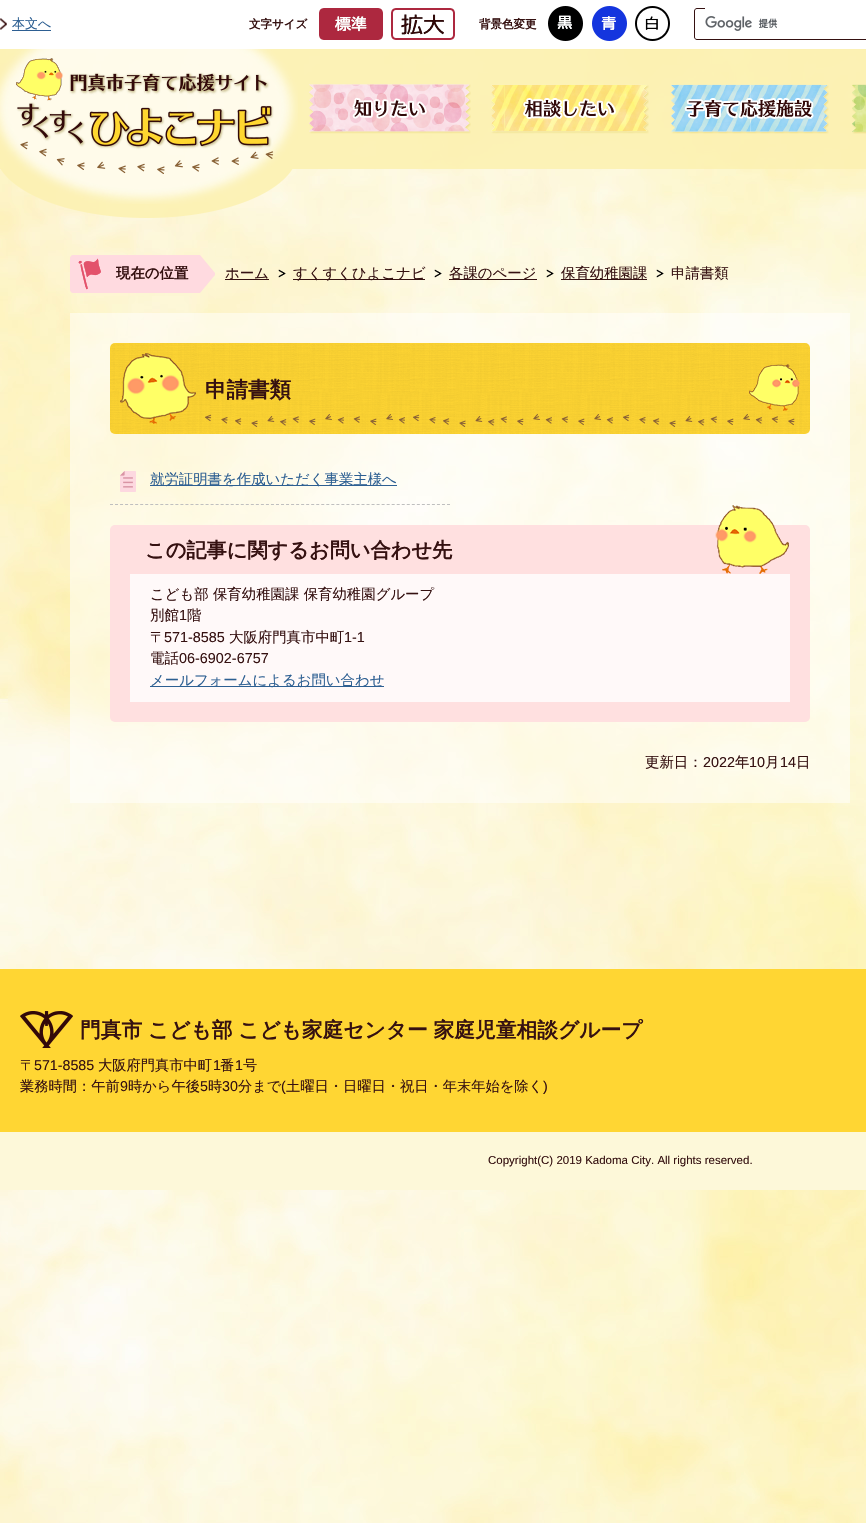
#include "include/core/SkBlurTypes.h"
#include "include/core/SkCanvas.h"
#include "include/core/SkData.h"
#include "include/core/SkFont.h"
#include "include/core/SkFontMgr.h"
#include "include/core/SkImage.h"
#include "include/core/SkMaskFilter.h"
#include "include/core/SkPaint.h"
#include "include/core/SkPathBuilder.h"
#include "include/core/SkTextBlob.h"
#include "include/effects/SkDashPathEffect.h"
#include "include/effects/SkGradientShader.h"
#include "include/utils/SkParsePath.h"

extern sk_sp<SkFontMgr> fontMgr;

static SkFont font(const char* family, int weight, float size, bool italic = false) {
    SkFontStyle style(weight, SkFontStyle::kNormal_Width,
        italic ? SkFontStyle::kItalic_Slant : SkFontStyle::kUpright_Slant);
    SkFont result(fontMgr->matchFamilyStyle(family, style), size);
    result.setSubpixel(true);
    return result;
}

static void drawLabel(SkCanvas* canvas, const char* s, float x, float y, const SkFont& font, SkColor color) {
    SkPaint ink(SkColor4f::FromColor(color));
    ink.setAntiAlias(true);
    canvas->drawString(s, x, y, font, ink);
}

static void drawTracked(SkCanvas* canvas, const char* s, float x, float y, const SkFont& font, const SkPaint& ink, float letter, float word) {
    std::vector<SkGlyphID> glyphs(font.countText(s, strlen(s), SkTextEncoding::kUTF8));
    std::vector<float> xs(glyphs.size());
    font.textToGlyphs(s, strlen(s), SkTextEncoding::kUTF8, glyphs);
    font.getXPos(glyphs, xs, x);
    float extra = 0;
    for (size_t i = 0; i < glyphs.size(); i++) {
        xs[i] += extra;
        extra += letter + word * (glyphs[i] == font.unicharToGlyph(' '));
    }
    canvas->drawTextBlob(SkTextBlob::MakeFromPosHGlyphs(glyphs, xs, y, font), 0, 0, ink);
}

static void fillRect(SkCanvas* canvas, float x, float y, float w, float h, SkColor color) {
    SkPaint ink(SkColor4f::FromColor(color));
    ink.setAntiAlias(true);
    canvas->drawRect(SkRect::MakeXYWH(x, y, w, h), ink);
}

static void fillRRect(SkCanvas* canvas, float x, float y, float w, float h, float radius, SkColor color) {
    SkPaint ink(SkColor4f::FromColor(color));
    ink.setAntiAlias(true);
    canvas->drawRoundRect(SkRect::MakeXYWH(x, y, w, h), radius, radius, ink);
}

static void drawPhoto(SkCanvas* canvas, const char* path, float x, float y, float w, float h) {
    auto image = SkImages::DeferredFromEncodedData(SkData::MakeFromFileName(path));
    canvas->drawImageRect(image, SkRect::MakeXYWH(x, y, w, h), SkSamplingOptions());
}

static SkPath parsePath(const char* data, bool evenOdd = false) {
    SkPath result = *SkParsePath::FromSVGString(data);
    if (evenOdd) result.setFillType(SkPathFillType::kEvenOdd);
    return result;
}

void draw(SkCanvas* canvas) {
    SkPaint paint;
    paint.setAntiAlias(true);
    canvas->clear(0xFFFFFFFF);
    drawPhoto(canvas, "assets/img1.png", 0, 49, 866, 1474);
    drawPhoto(canvas, "assets/img2.png", 0, 18, 7, 12);
    SkFont font1 = font("WenQuanYi Zen Hei", 500, 13);
    drawLabel(canvas, "本文へ", 12, 28, font1, 0xFF2D5F92);
    fillRect(canvas, 12, 30, 39, 1, 0xFF2D5F92);
    SkFont font2 = font("WenQuanYi Zen Hei", 700, 11.5f);
    drawLabel(canvas, "文字サイズ", 249, 28, font2, 0xFF351111);
    drawPhoto(canvas, "assets/img3.png", 319, 8, 64, 32);
    drawPhoto(canvas, "assets/img4.png", 391, 8, 64, 32);
    drawLabel(canvas, "背景色変更", 479, 28, font2, 0xFF351111);
    drawPhoto(canvas, "assets/img5.png", 548, 6, 35, 35);
    drawPhoto(canvas, "assets/img6.png", 592, 6, 35, 35);
    drawPhoto(canvas, "assets/img7.png", 635, 6, 35, 35);
    paint.setStroke(true);
    paint.setStrokeWidth(1);
    paint.setColor(0xFF351111);
    canvas->drawPath(parsePath("M697 8.5H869.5V39.5H697C695.5 39.5 694.5 38.5 694.5 37V11C694.5 9.5 695.5 8.5 697 8.5Z"), paint);
    fillRect(canvas, 705, 8, 161, 1, 0xFFFFFFFF);
    drawPhoto(canvas, "assets/img8.png", 705, 16, 73, 15);
    fillRect(canvas, 0, 49, 866, 120, 0xE6FCF1B1);
    drawPhoto(canvas, "assets/img14.png", 1, 169, 292, 49);
    drawPhoto(canvas, "assets/img9.png", 0, 49, 298, 155);
    drawPhoto(canvas, "assets/img10.png", 309, 84, 162, 50);
    drawPhoto(canvas, "assets/img11.png", 491, 84, 158, 50);
    drawPhoto(canvas, "assets/img12.png", 671, 84, 158, 50);
    drawPhoto(canvas, "assets/img13.png", 852, 84, 14, 50);
    paint.setStroke(false);
    paint.setColor(0xFFFFDAE0);
    canvas->drawPath(parsePath("M73 255H200V293H73C71.5 293 70 291.5 70 290V258C70 256.5 71.5 255 73 255Z"), paint);
    drawPhoto(canvas, "assets/img15.png", 78, 258, 23, 32);
    SkFont font3 = font("WenQuanYi Zen Hei", 700, 14.4f);
    drawLabel(canvas, "現在の位置", 116, 278, font3, 0xFF351111);
    canvas->drawPath(parsePath("M200 293V255L215 273V275Z"), paint);
    fillRect(canvas, 225, 279, 44, 1, 0xFF351111);
    SkFont font4 = font("WenQuanYi Zen Hei", 500, 14.4f);
    drawLabel(canvas, "ホーム", 225, 278, font4, 0xFF351111);
    drawPhoto(canvas, "assets/img16.png", 278, 269, 8, 9);
    fillRect(canvas, 293, 279, 132, 1, 0xFF351111);
    drawLabel(canvas, "すくすくひよこナビ", 293, 278, font4, 0xFF351111);
    drawPhoto(canvas, "assets/img17.png", 434, 269, 8, 9);
    fillRect(canvas, 449, 279, 88, 1, 0xFF351111);
    drawLabel(canvas, "各課のページ", 449, 278, font4, 0xFF351111);
    drawPhoto(canvas, "assets/img18.png", 546, 269, 8, 9);
    fillRect(canvas, 561, 279, 86, 1, 0xFF351111);
    drawLabel(canvas, "保育幼稚園課", 561, 278, font4, 0xFF351111);
    drawPhoto(canvas, "assets/img19.png", 656, 269, 8, 9);
    drawLabel(canvas, "申請書類", 671, 278, font4, 0xFF351111);
    fillRect(canvas, 70, 313, 780, 490, 0x80FFFFFF);
    drawPhoto(canvas, "assets/img20.png", 110, 343, 700, 91);
    drawPhoto(canvas, "assets/img21.png", 120, 353, 680, 74);
    SkFont font5 = font("WenQuanYi Zen Hei", 700, 21.5f);
    drawLabel(canvas, "申請書類", 205, 397, font5, 0xFF351111);
    drawPhoto(canvas, "assets/img22.png", 120, 471, 16, 21);
    paint.setStroke(true);
    paint.setColor(0xFFBFBFBF);
    paint.setPathEffect(SkDashPathEffect::Make({{3, 2.03f}}, 0));
    canvas->drawPath(parsePath("M110 504.5H450"), paint);
    paint.setPathEffect(nullptr);
    fillRect(canvas, 150, 485, 247, 1, 0xFF2D5F92);
    drawLabel(canvas, "就労証明書を作成いただく事業主様へ", 150, 484, font4, 0xFF2D5F92);
    fillRRect(canvas, 110, 525, 700, 197, 5, 0xFFFFE0E0);
    SkFont font6 = font("WenQuanYi Zen Hei", 700, 20.2f);
    drawLabel(canvas, "この記事に関するお問い合わせ先", 145, 557, font6, 0xFF351111);
    drawPhoto(canvas, "assets/img23.png", 715, 505, 74, 69);
    fillRect(canvas, 130, 574, 660, 128, 0xFFFFF9F9);
    drawLabel(canvas, "こども部 保育幼稚園課 保育幼稚園グループ", 150, 599, font4, 0xFF351111);
    drawLabel(canvas, "別館", 150, 620, font4, 0xFF351111);
    SkFont font7 = font("Liberation Sans", 400, 14.4f);
    drawLabel(canvas, "1", 179, 620, font7, 0xFF351111);
    drawLabel(canvas, "階", 187, 620, font4, 0xFF351111);
    drawLabel(canvas, "〒", 150, 642, font4, 0xFF351111);
    drawLabel(canvas, "571-8585", 164, 642, font7, 0xFF351111);
    drawLabel(canvas, "大阪府門真市中町", 229, 642, font4, 0xFF351111);
    drawLabel(canvas, "1-1", 344, 642, font7, 0xFF351111);
    drawLabel(canvas, "電話", 150, 663, font4, 0xFF351111);
    drawLabel(canvas, "06-6902-6757", 179, 663, font7, 0xFF351111);
    fillRect(canvas, 150, 686, 234, 1, 0xFF2D5F92);
    drawLabel(canvas, "メールフォームによるお問い合わせ", 150, 685, font4, 0xFF2D5F92);
    drawLabel(canvas, "更新日：", 645, 767, font4, 0xFF351111);
    drawLabel(canvas, "2022", 703, 767, font7, 0xFF351111);
    drawLabel(canvas, "年", 735, 767, font4, 0xFF351111);
    drawLabel(canvas, "10", 749, 767, font7, 0xFF351111);
    drawLabel(canvas, "月", 765, 767, font4, 0xFF351111);
    drawLabel(canvas, "14", 780, 767, font7, 0xFF351111);
    drawLabel(canvas, "日", 796, 767, font4, 0xFF351111);
    fillRect(canvas, 0, 969, 866, 163, 0xFFFFD633);
    drawPhoto(canvas, "assets/img24.png", 20, 1011, 53, 37);
    SkFont font8 = font("WenQuanYi Zen Hei", 700, 20.75f);
    paint.setStroke(false);
    paint.setColor(0xFF351111);
    drawTracked(canvas, "門真市 こども部 こども家庭センター 家庭児童相談グループ", 80, 1037, font8, paint, 0, -0.5f);
    SkFont font9 = font("WenQuanYi Zen Hei", 500, 14.25f);
    drawLabel(canvas, "〒", 20, 1070, font9, 0xFF351111);
    SkFont font10 = font("Liberation Sans", 400, 14.25f);
    drawLabel(canvas, "571-8585", 34, 1070, font10, 0xFF351111);
    drawLabel(canvas, "大阪府門真市中町", 98, 1070, font9, 0xFF351111);
    drawLabel(canvas, "1", 213, 1070, font10, 0xFF351111);
    drawLabel(canvas, "番", 220, 1070, font9, 0xFF351111);
    drawLabel(canvas, "1", 235, 1070, font10, 0xFF351111);
    drawLabel(canvas, "号", 243, 1070, font9, 0xFF351111);
    drawLabel(canvas, "業務時間：午前", 20, 1091, font9, 0xFF351111);
    drawLabel(canvas, "9", 120, 1091, font10, 0xFF351111);
    drawLabel(canvas, "時から午後", 128, 1091, font9, 0xFF351111);
    drawLabel(canvas, "5", 200, 1091, font10, 0xFF351111);
    drawLabel(canvas, "時", 208, 1091, font9, 0xFF351111);
    drawLabel(canvas, "30", 222, 1091, font10, 0xFF351111);
    drawLabel(canvas, "分まで", 238, 1091, font9, 0xFF351111);
    drawLabel(canvas, "(", 281, 1091, font10, 0xFF351111);
    drawLabel(canvas, "土曜日・日曜日・祝日・年末年始を除く", 286, 1091, font9, 0xFF351111);
    drawLabel(canvas, ")", 543, 1091, font10, 0xFF351111);
    fillRect(canvas, 0, 1132, 866, 58, 0xFFFDF8D9);
    SkFont font11 = font("Liberation Sans", 400, 11.5f);
    drawLabel(canvas, "Copyright(C) 2019 Kadoma City. All rights reserved.", 488, 1164, font11, 0xFF351111);
}
